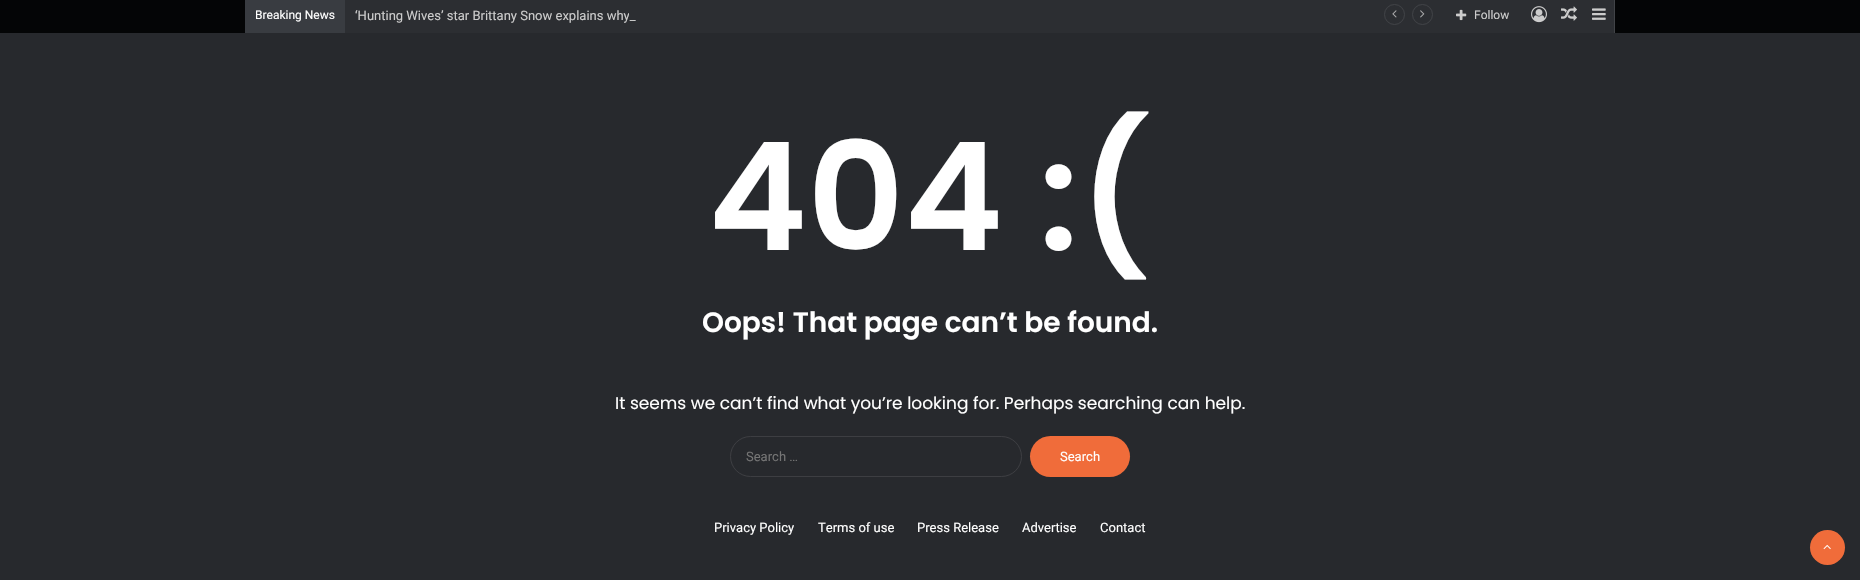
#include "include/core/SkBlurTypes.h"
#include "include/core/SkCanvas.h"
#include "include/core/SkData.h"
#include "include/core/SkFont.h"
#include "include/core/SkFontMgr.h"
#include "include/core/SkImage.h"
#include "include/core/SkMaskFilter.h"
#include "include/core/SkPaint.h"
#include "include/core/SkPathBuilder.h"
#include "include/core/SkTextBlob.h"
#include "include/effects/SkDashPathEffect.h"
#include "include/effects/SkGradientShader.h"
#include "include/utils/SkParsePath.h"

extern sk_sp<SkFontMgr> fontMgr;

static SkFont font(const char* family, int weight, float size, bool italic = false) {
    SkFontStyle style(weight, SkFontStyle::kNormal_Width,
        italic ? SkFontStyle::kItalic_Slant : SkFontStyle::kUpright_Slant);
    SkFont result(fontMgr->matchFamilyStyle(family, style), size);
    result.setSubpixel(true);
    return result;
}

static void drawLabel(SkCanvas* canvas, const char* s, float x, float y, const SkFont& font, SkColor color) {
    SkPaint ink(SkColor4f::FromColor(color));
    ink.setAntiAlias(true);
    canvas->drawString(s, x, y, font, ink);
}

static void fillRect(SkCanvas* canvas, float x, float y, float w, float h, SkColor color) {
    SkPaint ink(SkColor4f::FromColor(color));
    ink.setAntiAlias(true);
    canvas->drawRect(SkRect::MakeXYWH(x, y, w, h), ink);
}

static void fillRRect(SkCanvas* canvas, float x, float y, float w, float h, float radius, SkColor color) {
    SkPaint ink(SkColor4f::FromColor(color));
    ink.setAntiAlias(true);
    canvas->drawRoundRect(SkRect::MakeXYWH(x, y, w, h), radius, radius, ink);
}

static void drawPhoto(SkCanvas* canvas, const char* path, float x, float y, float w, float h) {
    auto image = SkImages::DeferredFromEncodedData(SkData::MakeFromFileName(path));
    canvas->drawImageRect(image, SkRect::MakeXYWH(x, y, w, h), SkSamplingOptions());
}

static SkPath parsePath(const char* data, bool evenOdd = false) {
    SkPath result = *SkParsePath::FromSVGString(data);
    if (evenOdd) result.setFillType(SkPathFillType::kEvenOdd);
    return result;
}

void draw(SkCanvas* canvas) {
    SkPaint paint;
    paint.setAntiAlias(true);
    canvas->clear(0xFF27292D);
    fillRect(canvas, 0, 0, 1860, 33, 0xFF040506);
    fillRect(canvas, 345, 0, 1269, 33, 0xFF2C2E32);
    paint.setColor(0xFF414347);
    canvas->drawPath(parsePath("M1615-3V33H1614V-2Z"), paint);
    fillRect(canvas, 245, 0, 100, 33, 0xFF393C41);
    SkFont font1 = font("Roboto", 400, 12);
    drawLabel(canvas, "Breaking News", 255, 19, font1, 0xFFFFFFFF);
    SkFont font2 = font("Roboto", 400, 13);
    drawLabel(canvas, "‘Hunting Wives’ star Brittany Snow explains why_", 355, 20, font2, 0xFFCCCCCC);
    fillRect(canvas, 629, 13, 1, 2, 0xFF2C2E32);
    paint.setStroke(true);
    paint.setStrokeWidth(1);
    canvas->drawCircle(1394.5f, 14.5f, 10, paint);
    drawPhoto(canvas, "assets/img1.png", 1392, 10, 5, 8);
    canvas->drawCircle(1422.5f, 14.5f, 10, paint);
    drawPhoto(canvas, "assets/img2.png", 1420, 10, 5, 8);
    drawPhoto(canvas, "assets/img3.png", 1456, 9, 11, 12);
    drawLabel(canvas, "Follow", 1474, 19, font1, 0xFFCCCCCC);
    drawPhoto(canvas, "assets/img4.png", 1531, 6, 16, 17);
    drawPhoto(canvas, "assets/img5.png", 1561, 6, 16, 15);
    drawPhoto(canvas, "assets/img6.png", 1592, 8, 14, 12);
    SkFont font3 = font("Poppins", 600, 150);
    drawLabel(canvas, "404 :(", 708, 250, font3, 0xFFFFFFFF);
    SkFont font4 = font("Poppins", 600, 28);
    drawLabel(canvas, "Oops! That page can’t be found.", 702, 332, font4, 0xFFFFFFFF);
    SkFont font5 = font("Poppins", 400, 17);
    drawLabel(canvas, "It seems we can’t find what you’re looking for. Perhaps searching can help.", 615, 409, font5, 0xFFFFFFFF);
    paint.setColor(0xFF3D3E42);
    canvas->drawRoundRect(SkRect::MakeXYWH(730.5f, 436.5f, 291, 40), 20, 20, paint);
    drawLabel(canvas, "Search …", 746, 461, font2, 0xFF757575);
    fillRRect(canvas, 1030, 436, 100, 41, 20.5f, 0xFFF06C3A);
    drawLabel(canvas, "Search", 1060, 461, font2, 0xFFFFFFFF);
    drawLabel(canvas, "Privacy Policy", 714, 532, font2, 0xFFFFFFFF);
    drawLabel(canvas, "Terms of use", 818, 532, font2, 0xFFFFFFFF);
    drawLabel(canvas, "Press Release", 917, 532, font2, 0xFFFFFFFF);
    drawLabel(canvas, "Advertise", 1022, 532, font2, 0xFFFFFFFF);
    drawLabel(canvas, "Contact", 1100, 532, font2, 0xFFFFFFFF);
    paint.setStroke(false);
    paint.setColor(0xFFF06C3A);
    canvas->drawCircle(1827.5f, 547.5f, 17.5f, paint);
    drawPhoto(canvas, "assets/img7.png", 1823, 544, 8, 6);
}
